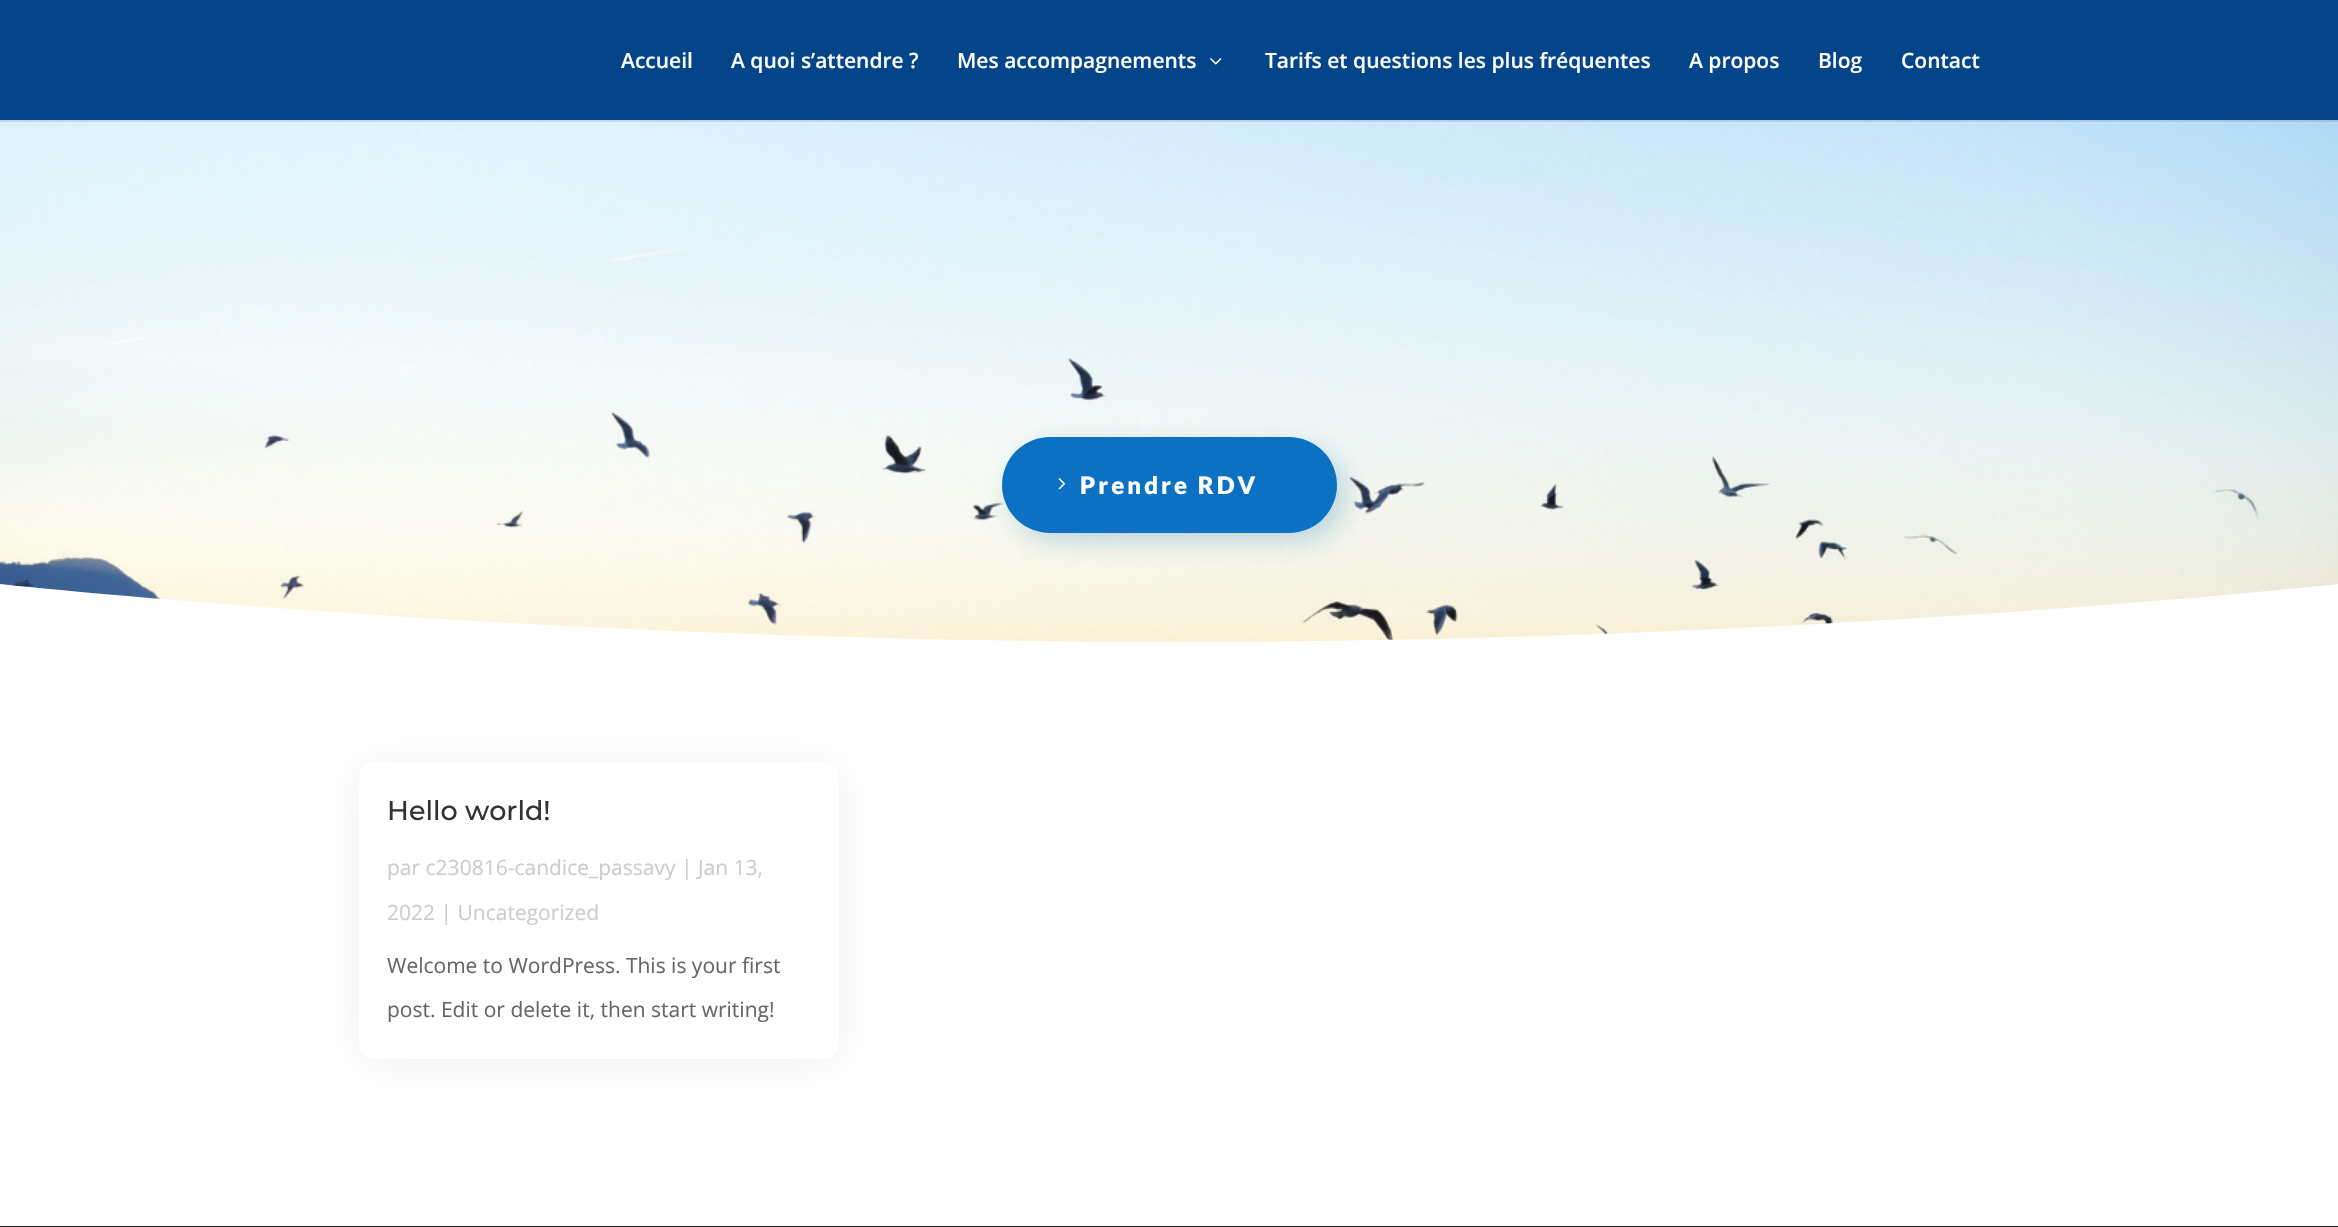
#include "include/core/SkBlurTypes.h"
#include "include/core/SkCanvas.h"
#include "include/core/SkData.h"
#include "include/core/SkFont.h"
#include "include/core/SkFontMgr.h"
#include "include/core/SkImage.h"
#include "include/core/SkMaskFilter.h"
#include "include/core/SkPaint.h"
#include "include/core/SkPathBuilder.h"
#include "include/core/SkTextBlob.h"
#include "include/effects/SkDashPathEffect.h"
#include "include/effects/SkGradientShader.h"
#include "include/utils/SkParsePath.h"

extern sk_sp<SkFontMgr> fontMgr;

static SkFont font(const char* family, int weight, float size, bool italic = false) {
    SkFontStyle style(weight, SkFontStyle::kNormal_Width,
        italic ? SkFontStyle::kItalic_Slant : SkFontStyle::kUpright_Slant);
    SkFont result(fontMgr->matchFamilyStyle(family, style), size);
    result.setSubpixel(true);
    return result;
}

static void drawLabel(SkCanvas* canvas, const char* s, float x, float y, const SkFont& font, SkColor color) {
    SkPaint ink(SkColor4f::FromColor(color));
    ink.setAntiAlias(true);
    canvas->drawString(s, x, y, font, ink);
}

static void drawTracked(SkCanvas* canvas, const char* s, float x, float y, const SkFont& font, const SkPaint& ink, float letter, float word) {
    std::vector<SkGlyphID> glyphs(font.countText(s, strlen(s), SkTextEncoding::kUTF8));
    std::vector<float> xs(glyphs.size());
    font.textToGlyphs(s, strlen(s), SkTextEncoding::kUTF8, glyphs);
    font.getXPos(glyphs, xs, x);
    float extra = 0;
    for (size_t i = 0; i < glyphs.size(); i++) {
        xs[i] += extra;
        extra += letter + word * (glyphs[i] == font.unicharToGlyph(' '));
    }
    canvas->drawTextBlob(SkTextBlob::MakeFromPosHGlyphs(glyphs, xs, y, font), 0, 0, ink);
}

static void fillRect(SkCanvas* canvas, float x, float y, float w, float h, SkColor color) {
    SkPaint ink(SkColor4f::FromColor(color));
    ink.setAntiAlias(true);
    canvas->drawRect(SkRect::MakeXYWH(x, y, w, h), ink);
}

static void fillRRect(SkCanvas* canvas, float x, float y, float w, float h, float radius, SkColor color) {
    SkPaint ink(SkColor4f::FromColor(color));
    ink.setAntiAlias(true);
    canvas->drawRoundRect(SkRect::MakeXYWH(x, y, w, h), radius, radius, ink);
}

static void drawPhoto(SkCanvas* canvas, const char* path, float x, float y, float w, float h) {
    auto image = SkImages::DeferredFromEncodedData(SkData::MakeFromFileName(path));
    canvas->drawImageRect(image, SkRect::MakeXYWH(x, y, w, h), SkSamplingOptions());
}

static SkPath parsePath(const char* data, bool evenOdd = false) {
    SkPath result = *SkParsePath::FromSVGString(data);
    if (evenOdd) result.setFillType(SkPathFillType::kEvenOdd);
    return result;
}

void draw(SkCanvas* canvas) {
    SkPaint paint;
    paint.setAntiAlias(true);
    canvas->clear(0xFFFFFFFF);
    drawPhoto(canvas, "assets/img2.png", 0, 120, 2338, 522);
    paint.setColor(0x1A000000);
    canvas->drawPath(parsePath("M0 120V122H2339V2H2338V120Z"), paint);
    fillRect(canvas, 0, 0, 2338, 120, 0xFF044489);
    SkFont font1 = font("Open Sans", 600, 21);
    drawLabel(canvas, "Accueil", 621, 68, font1, 0xFFFFFFFF);
    drawLabel(canvas, "A quoi s’attendre ?", 731, 68, font1, 0xFFFFFFFF);
    drawLabel(canvas, "Mes accompagnements", 957, 68, font1, 0xFFFFFFFF);
    drawPhoto(canvas, "assets/img1.png", 1210, 58, 12, 7);
    drawLabel(canvas, "Tarifs et questions les plus fréquentes", 1265, 68, font1, 0xFFFFFFFF);
    drawLabel(canvas, "A propos", 1689, 68, font1, 0xFFFFFFFF);
    drawLabel(canvas, "Blog", 1818, 68, font1, 0xFFFFFFFF);
    drawLabel(canvas, "Contact", 1901, 68, font1, 0xFFFFFFFF);
    paint.setColor(0x6664A2C1);
    paint.setMaskFilter(SkMaskFilter::MakeBlur(kNormal_SkBlurStyle, 13.5f));
    canvas->drawRoundRect(SkRect::MakeXYWH(1011, 446, 335, 96), 48, 48, paint);
    paint.setMaskFilter(nullptr);
    fillRRect(canvas, 1002, 437, 335, 96, 48, 0xFF0C71C3);
    drawPhoto(canvas, "assets/img3.png", 1058, 478, 7, 12);
    SkFont font2 = font("Lato", 900, 24);
    paint.setColor(0xFFFFFFFF);
    drawTracked(canvas, "Prendre RDV", 1080, 494, font2, paint, 3, 0);
    canvas->drawPath(parsePath("M2338 642V584C2338 584 1815 642 1169 642C523 641 0 584 0 584V642Z"), paint);
    paint.setColor(0x0F000000);
    paint.setMaskFilter(SkMaskFilter::MakeBlur(kNormal_SkBlurStyle, 22.5f));
    canvas->drawRoundRect(SkRect::MakeXYWH(359, 765, 480, 297), 15, 15, paint);
    paint.setMaskFilter(nullptr);
    fillRRect(canvas, 359, 762, 480, 297, 15, 0xFFFFFFFF);
    SkFont font3 = font("Montserrat", 100, 27);
    drawLabel(canvas, "Hello world!", 387, 820, font3, 0xFF333333);
    SkFont font4 = font("Open Sans", 400, 21);
    drawLabel(canvas, "par c230816-candice_passavy | Jan 13,", 387, 875, font4, 0xFFCCCCCC);
    drawLabel(canvas, "2022 | Uncategorized", 387, 920, font4, 0xFFCCCCCC);
    drawLabel(canvas, "Welcome to WordPress. This is your first", 387, 973, font4, 0xFF666666);
    drawLabel(canvas, "post. Edit or delete it, then start writing!", 387, 1017, font4, 0xFF666666);
    fillRect(canvas, 0, 1226, 2338, 1, 0xFF222222);
}
